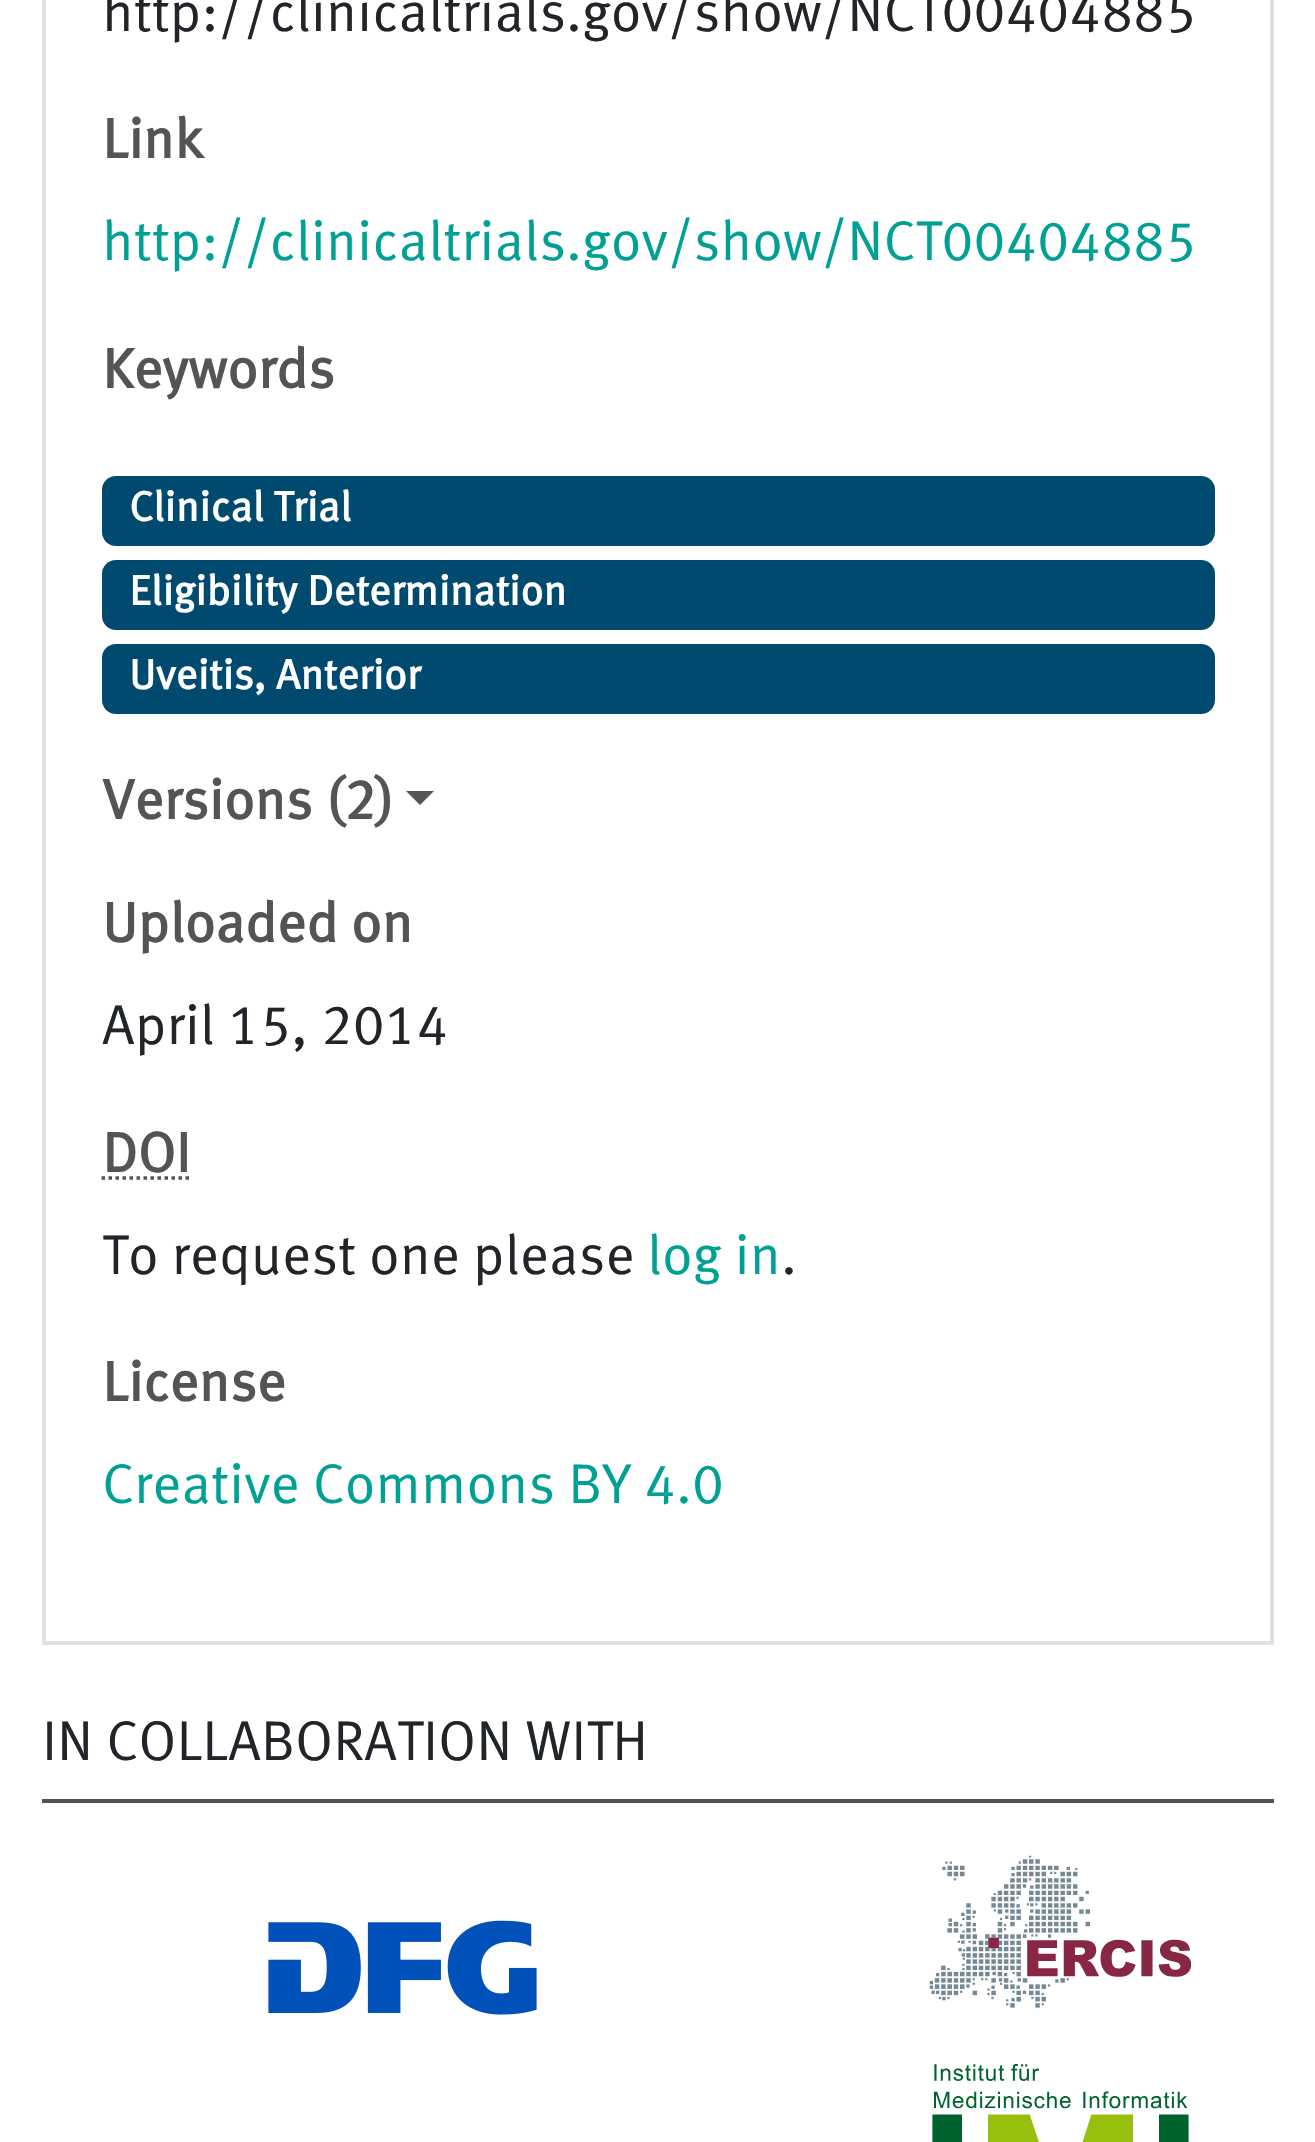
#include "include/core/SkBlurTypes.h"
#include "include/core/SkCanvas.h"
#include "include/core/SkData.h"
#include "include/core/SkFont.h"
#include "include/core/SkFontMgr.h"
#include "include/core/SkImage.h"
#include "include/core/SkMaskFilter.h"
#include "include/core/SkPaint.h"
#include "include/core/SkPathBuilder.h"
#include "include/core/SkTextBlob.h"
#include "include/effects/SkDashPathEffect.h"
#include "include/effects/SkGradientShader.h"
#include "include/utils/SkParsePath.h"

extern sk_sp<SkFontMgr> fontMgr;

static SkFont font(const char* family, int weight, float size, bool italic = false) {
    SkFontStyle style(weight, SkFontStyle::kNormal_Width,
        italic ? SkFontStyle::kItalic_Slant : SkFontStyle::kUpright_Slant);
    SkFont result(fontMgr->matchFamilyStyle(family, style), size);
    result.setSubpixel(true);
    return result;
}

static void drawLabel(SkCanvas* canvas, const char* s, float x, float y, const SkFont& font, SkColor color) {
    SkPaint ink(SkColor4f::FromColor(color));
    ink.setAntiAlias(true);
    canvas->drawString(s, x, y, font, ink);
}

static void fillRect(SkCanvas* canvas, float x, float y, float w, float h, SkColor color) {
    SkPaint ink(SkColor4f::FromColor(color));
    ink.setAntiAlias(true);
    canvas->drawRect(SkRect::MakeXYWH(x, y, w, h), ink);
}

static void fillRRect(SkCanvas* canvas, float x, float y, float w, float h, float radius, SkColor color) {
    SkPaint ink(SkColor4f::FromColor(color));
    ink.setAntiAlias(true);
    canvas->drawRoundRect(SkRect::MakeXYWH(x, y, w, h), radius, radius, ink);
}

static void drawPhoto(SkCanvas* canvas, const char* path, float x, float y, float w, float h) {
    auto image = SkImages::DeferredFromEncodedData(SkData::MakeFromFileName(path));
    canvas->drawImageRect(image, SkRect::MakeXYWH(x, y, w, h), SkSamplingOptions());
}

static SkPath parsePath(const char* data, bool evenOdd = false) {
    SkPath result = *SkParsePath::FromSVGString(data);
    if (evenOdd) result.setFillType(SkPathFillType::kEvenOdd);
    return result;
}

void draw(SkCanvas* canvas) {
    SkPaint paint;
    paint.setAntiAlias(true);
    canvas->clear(0xFFFFFFFF);
    paint.setStroke(true);
    paint.setStrokeWidth(4);
    paint.setColor(0xFFDEE2E6);
    canvas->drawRect(SkRect::MakeXYWH(44, -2, 1228, 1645), paint);
    SkFont font1 = font("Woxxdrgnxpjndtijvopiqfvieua", 400, 56);
    drawLabel(canvas, "http://clinicaltrials.gov/show/NCT00404885", 102, 31, font1, 0xFF212529);
    SkFont font2 = font("Woxxdrgnxpjndtijvopiqfvieua", 700, 56);
    drawLabel(canvas, "Link", 102, 158, font2, 0xFF535455);
    drawLabel(canvas, "http://clinicaltrials.gov/show/NCT00404885", 102, 260, font1, 0xFF00A194);
    drawLabel(canvas, "Keywords", 102, 388, font2, 0xFF535455);
    fillRRect(canvas, 102, 476, 1113, 70, 14, 0xFF004A6F);
    SkFont font3 = font("Woxxdrgnxpjndtijvopiqfvieua", 700, 42);
    drawLabel(canvas, "Clinical Trial", 129, 521, font3, 0xFFFFFFFF);
    fillRRect(canvas, 102, 560, 1113, 70, 14, 0xFF004A6F);
    drawLabel(canvas, "Eligibility Determination", 129, 605, font3, 0xFFFFFFFF);
    fillRRect(canvas, 102, 644, 1113, 70, 14, 0xFF004A6F);
    drawLabel(canvas, "Uveitis, Anterior", 129, 689, font3, 0xFFFFFFFF);
    drawLabel(canvas, "Versions (2)", 102, 819, font2, 0xFF535455);
    paint.setStroke(false);
    paint.setColor(0xFF535455);
    canvas->drawPath(parsePath("M406 791H434L420 805Z"), paint);
    drawLabel(canvas, "Uploaded on", 102, 942, font2, 0xFF535455);
    drawLabel(canvas, "April 15, 2014", 102, 1044, font1, 0xFF212529);
    drawLabel(canvas, "DOI", 102, 1172, font2, 0xFF535455);
    paint.setStroke(true);
    paint.setStrokeWidth(3.5f);
    paint.setPathEffect(SkDashPathEffect::Make({{3.5f, 3.5f}}, 0));
    canvas->drawPath(parsePath("M101.5 1178H190.5"), paint);
    paint.setPathEffect(nullptr);
    drawLabel(canvas, "To request one please", 102, 1274, font1, 0xFF212529);
    drawLabel(canvas, "log in", 647, 1274, font1, 0xFF00A194);
    drawLabel(canvas, ".", 781, 1274, font1, 0xFF212529);
    drawLabel(canvas, "License", 102, 1401, font2, 0xFF535455);
    drawLabel(canvas, "Creative Commons BY 4.0", 102, 1503, font1, 0xFF00A194);
    fillRect(canvas, 42, 1799, 1232, 4, 0xFF535455);
    drawLabel(canvas, "IN COLLABORATION WITH", 42, 1760, font1, 0xFF212529);
    drawPhoto(canvas, "assets/img1.png", 268, 1920, 269, 95);
    drawPhoto(canvas, "assets/img2.png", 929, 1855, 263, 153);
    drawPhoto(canvas, "assets/img3.png", 932, 2064, 257, 78);
}
